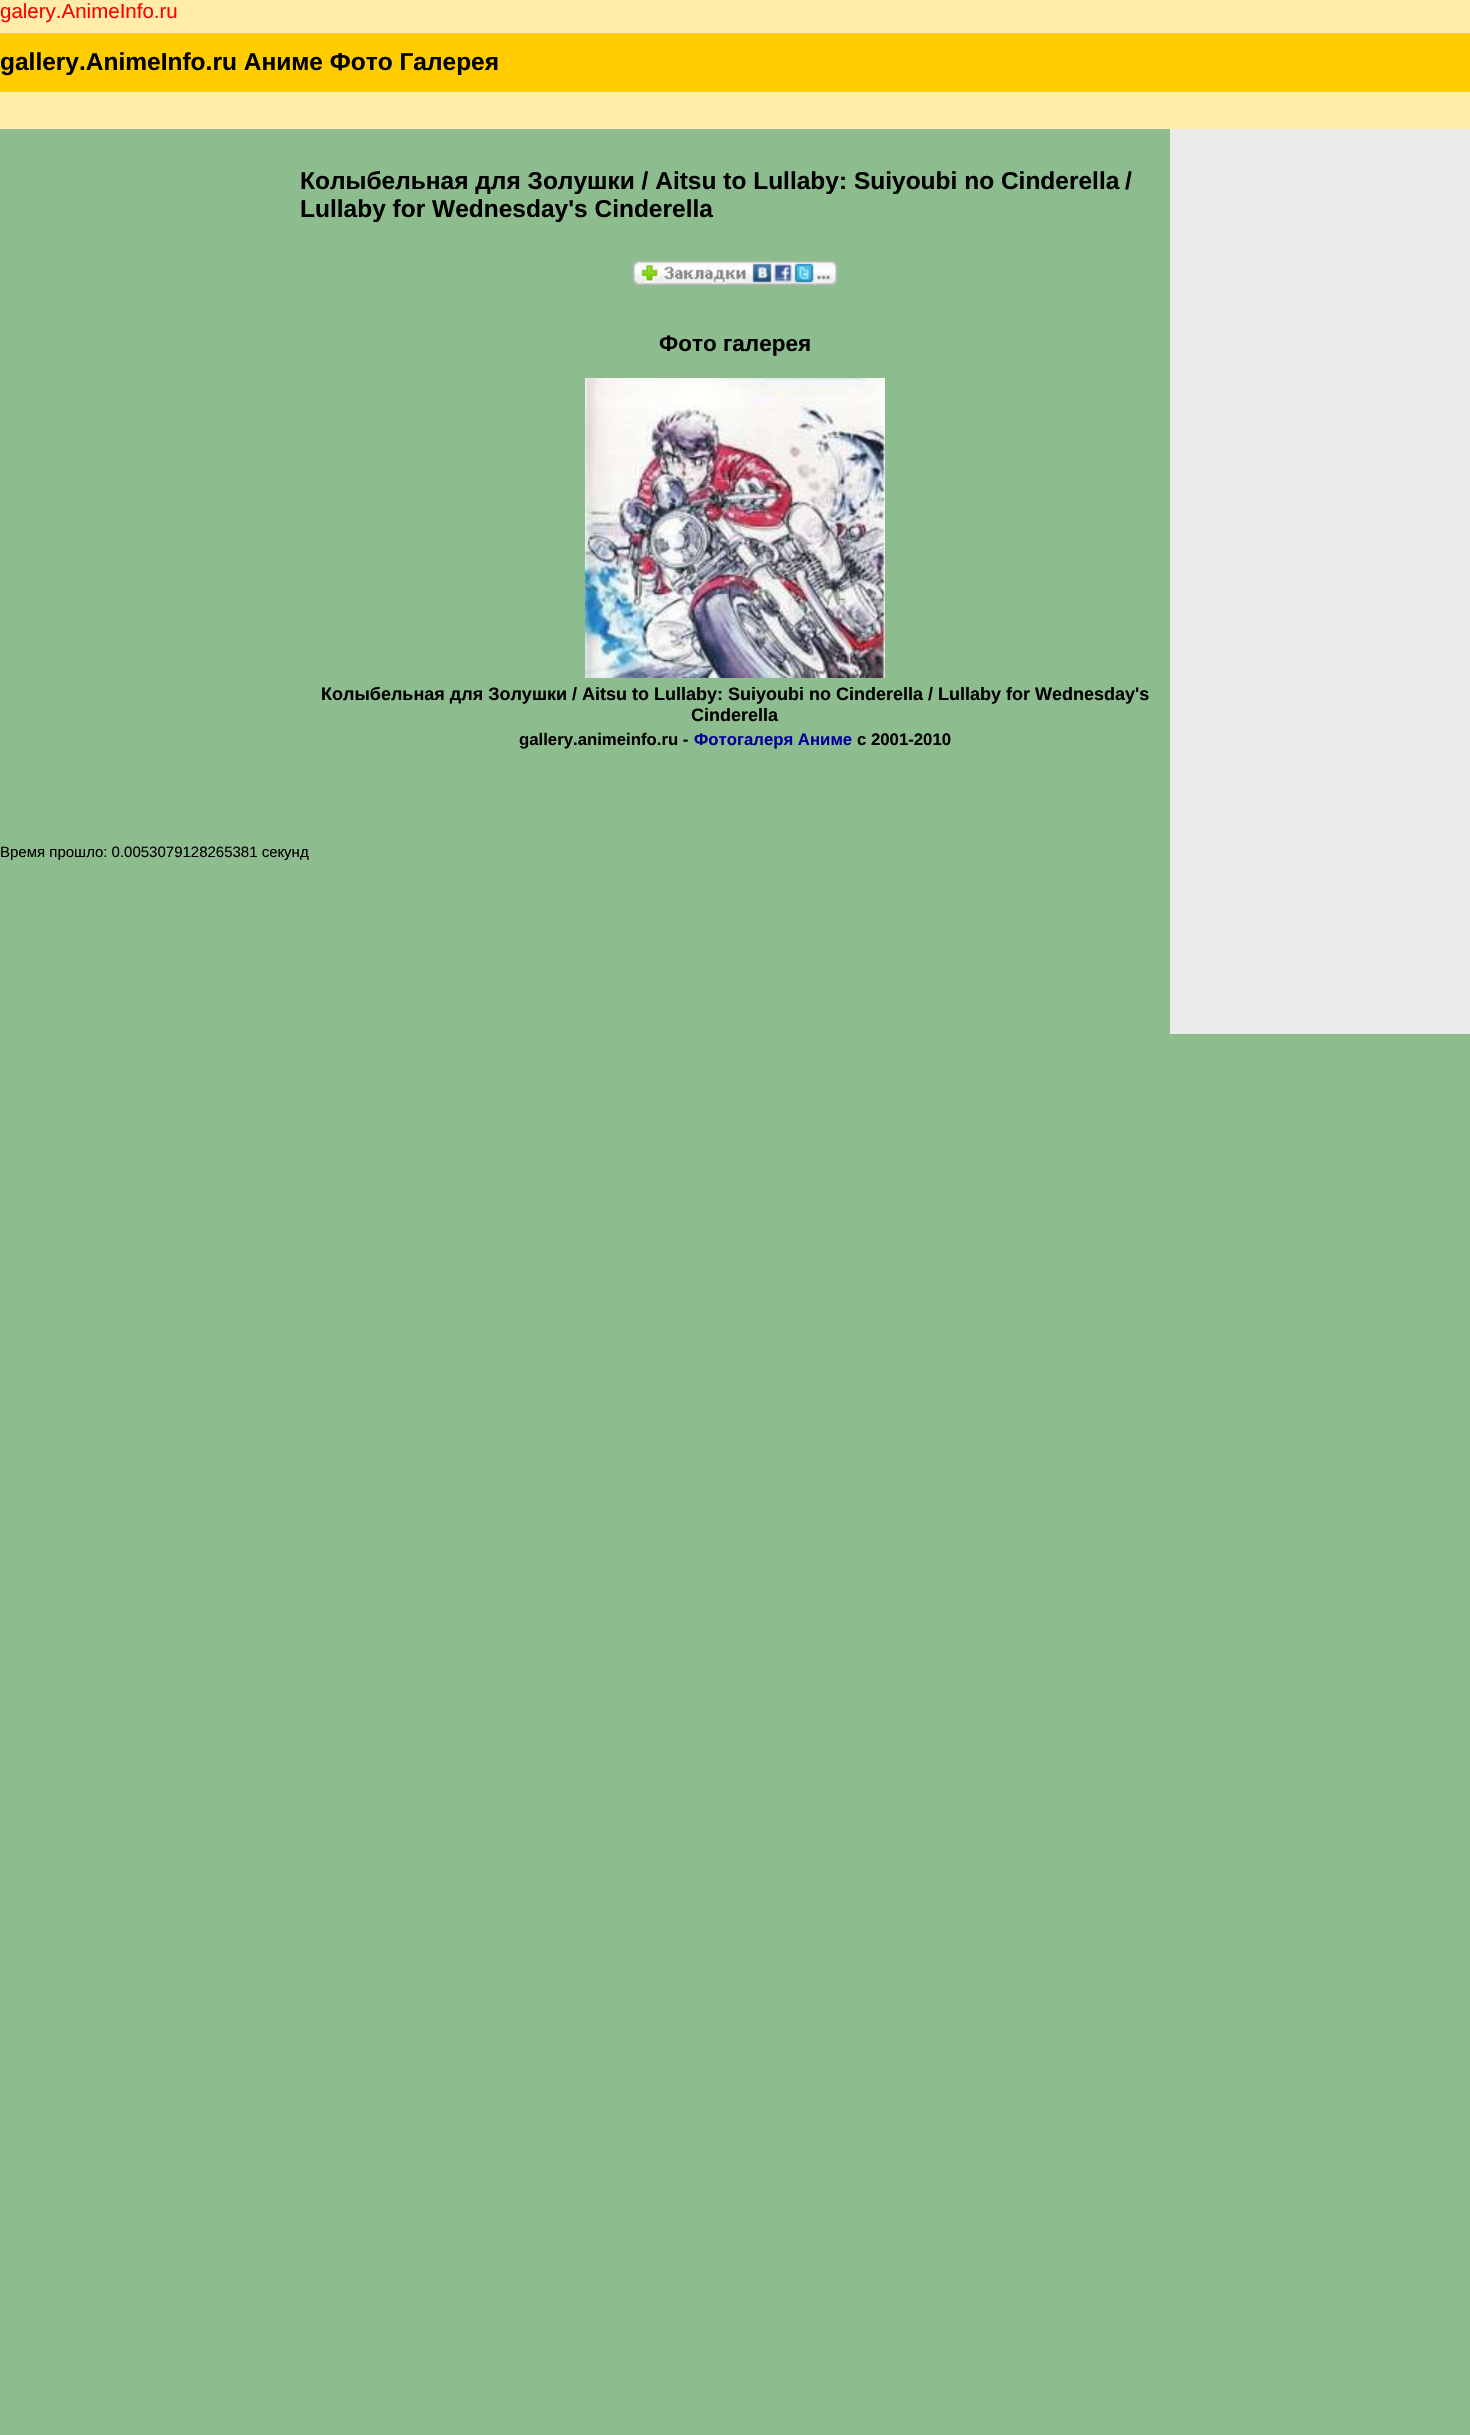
#include "include/core/SkBlurTypes.h"
#include "include/core/SkCanvas.h"
#include "include/core/SkData.h"
#include "include/core/SkFont.h"
#include "include/core/SkFontMgr.h"
#include "include/core/SkImage.h"
#include "include/core/SkMaskFilter.h"
#include "include/core/SkPaint.h"
#include "include/core/SkPathBuilder.h"
#include "include/core/SkTextBlob.h"
#include "include/effects/SkDashPathEffect.h"
#include "include/effects/SkGradientShader.h"
#include "include/utils/SkParsePath.h"

extern sk_sp<SkFontMgr> fontMgr;

static SkFont font(const char* family, int weight, float size, bool italic = false) {
    SkFontStyle style(weight, SkFontStyle::kNormal_Width,
        italic ? SkFontStyle::kItalic_Slant : SkFontStyle::kUpright_Slant);
    SkFont result(fontMgr->matchFamilyStyle(family, style), size);
    result.setSubpixel(true);
    return result;
}

static void drawLabel(SkCanvas* canvas, const char* s, float x, float y, const SkFont& font, SkColor color) {
    SkPaint ink(SkColor4f::FromColor(color));
    ink.setAntiAlias(true);
    canvas->drawString(s, x, y, font, ink);
}

static void fillRect(SkCanvas* canvas, float x, float y, float w, float h, SkColor color) {
    SkPaint ink(SkColor4f::FromColor(color));
    ink.setAntiAlias(true);
    canvas->drawRect(SkRect::MakeXYWH(x, y, w, h), ink);
}

static void drawPhoto(SkCanvas* canvas, const char* path, float x, float y, float w, float h) {
    auto image = SkImages::DeferredFromEncodedData(SkData::MakeFromFileName(path));
    canvas->drawImageRect(image, SkRect::MakeXYWH(x, y, w, h), SkSamplingOptions());
}

void draw(SkCanvas* canvas) {
    SkPaint paint;
    paint.setAntiAlias(true);
    canvas->clear(0xFF8DBC8F);
    fillRect(canvas, 0, 0, 1470, 129, 0xFFFFEDA9);
    SkFont font1 = font("Liberation Sans", 400, 20.5f);
    drawLabel(canvas, "galery.AnimeInfo.ru", 0, 18, font1, 0xFFFF0000);
    fillRect(canvas, 0, 33, 1470, 59, 0xFFFFCC00);
    SkFont font2 = font("Liberation Sans", 700, 24.5f);
    drawLabel(canvas, "gallery.AnimeInfo.ru Аниме Фото Галерея", 0, 70, font2, 0xFF000000);
    drawLabel(canvas, "Колыбельная для Золушки / Aitsu to Lullaby: Suiyoubi no Cinderella", 300, 189, font2, 0xFF000000);
    drawLabel(canvas, "/", 1125, 189, font2, 0xFF000000);
    drawLabel(canvas, "Lullaby for Wednesday's Cinderella", 300, 217, font2, 0xFF000000);
    drawPhoto(canvas, "assets/img1.png", 633, 261, 204, 24);
    SkFont font3 = font("Liberation Sans", 700, 22.5f);
    drawLabel(canvas, "Фото галерея", 659, 351, font3, 0xFF000000);
    drawPhoto(canvas, "assets/img2.png", 585, 378, 300, 300);
    SkFont font4 = font("Liberation Sans", 700, 18);
    drawLabel(canvas, "Колыбельная для Золушки / Aitsu to Lullaby: Suiyoubi no Cinderella / Lullaby for Wednesday's", 321, 700, font4, 0xFF000000);
    drawLabel(canvas, "Cinderella", 691, 721, font4, 0xFF000000);
    fillRect(canvas, 1170, 129, 300, 905, 0xFFEBEBEB);
    SkFont font5 = font("Liberation Sans", 700, 16.75f);
    drawLabel(canvas, "gallery.animeinfo.ru -", 519, 745, font5, 0xFF000000);
    drawLabel(canvas, "Фотогалеря Аниме", 694, 745, font5, 0xFF000099);
    drawLabel(canvas, "c 2001-2010", 857, 745, font5, 0xFF000000);
    SkFont font6 = font("Liberation Sans", 400, 15);
    drawLabel(canvas, "Время прошло: 0.0053079128265381 секунд", 0, 857, font6, 0xFF000000);
}
